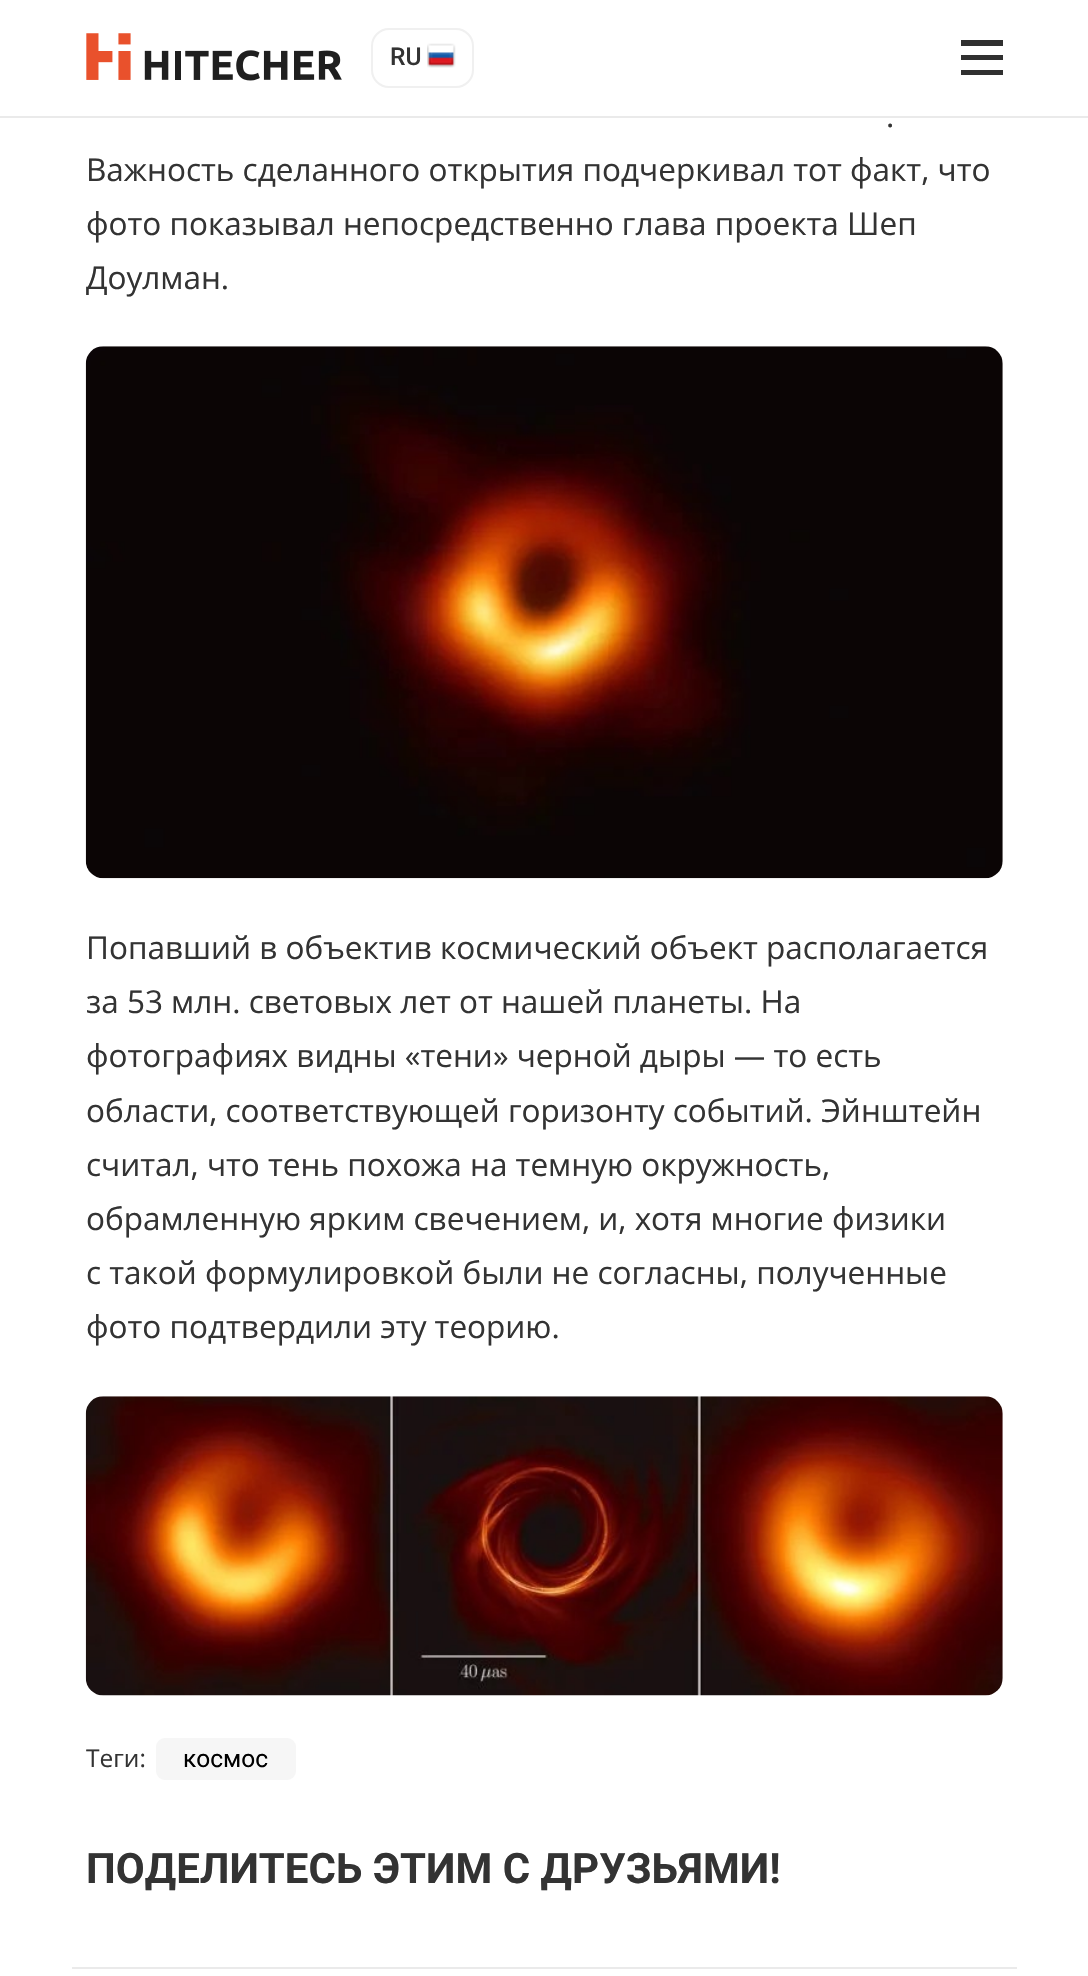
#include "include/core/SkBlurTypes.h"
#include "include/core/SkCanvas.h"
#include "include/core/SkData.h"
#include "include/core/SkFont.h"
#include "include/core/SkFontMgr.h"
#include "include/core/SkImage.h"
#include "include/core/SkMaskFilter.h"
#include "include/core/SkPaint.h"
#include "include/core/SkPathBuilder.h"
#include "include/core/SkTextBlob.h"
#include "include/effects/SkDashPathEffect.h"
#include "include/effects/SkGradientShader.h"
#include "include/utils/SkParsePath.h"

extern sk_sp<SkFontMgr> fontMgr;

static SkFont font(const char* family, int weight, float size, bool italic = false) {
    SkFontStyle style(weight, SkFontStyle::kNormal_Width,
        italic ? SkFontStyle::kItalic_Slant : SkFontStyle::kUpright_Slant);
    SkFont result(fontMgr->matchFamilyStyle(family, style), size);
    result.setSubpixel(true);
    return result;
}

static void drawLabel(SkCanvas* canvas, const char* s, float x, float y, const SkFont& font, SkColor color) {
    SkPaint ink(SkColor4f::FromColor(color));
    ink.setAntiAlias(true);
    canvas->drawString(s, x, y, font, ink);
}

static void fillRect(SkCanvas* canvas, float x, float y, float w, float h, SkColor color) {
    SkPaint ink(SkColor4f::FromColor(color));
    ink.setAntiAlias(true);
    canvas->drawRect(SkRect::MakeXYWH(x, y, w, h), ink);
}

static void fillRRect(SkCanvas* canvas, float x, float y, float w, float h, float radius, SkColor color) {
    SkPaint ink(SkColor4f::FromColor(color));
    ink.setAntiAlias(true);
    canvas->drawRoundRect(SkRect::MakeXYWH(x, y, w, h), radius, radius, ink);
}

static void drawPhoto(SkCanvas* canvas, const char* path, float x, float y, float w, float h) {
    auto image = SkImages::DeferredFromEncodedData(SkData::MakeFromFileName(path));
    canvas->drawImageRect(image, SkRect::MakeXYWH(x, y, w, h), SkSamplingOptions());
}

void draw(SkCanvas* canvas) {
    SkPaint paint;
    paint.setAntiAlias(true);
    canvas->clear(0xFFFFFFFF);
    fillRect(canvas, 0, 116, 1088, 2, 0xFFEAEAEA);
    drawPhoto(canvas, "assets/img1.png", 86, 33, 256, 48);
    paint.setStroke(true);
    paint.setStrokeWidth(2);
    paint.setColor(0xFFF0F0F0);
    canvas->drawRoundRect(SkRect::MakeXYWH(372, 29, 101, 58), 17, 17, paint);
    SkFont font1 = font("Roboto", 500, 24.5f);
    drawLabel(canvas, "RU", 390, 65, font1, 0xFF333333);
    drawPhoto(canvas, "assets/img2.png", 427, 43, 29, 25);
    fillRect(canvas, 961, 70, 42, 5, 0xFF303030);
    fillRect(canvas, 961, 55, 42, 5, 0xFF303030);
    fillRect(canvas, 961, 40, 42, 6, 0xFF303030);
    SkFont font2 = font("Open Sans", 400, 31.5f);
    drawLabel(canvas, ".", 886, 127, font2, 0xFF333333);
    drawLabel(canvas, "Важность сделанного открытия подчеркивал тот факт, что", 86, 181, font2, 0xFF333333);
    drawLabel(canvas, "фото показывал непосредственно глава проекта Шеп", 86, 235, font2, 0xFF333333);
    drawLabel(canvas, "Доулман.", 86, 289, font2, 0xFF333333);
    drawPhoto(canvas, "assets/img3.png", 85, 346, 918, 533);
    drawLabel(canvas, "Попавший в объектив космический объект располагается", 86, 959, font2, 0xFF333333);
    drawLabel(canvas, "за 53 млн. световых лет от нашей планеты. На", 86, 1013, font2, 0xFF333333);
    drawLabel(canvas, "фотографиях видны «тени» черной дыры — то есть", 86, 1067, font2, 0xFF333333);
    drawLabel(canvas, "области, соответствующей горизонту событий. Эйнштейн", 86, 1122, font2, 0xFF333333);
    drawLabel(canvas, "считал, что тень похожа на темную окружность,", 86, 1176, font2, 0xFF333333);
    drawLabel(canvas, "обрамленную ярким свечением, и, хотя многие физики", 86, 1230, font2, 0xFF333333);
    drawLabel(canvas, "с такой формулировкой были не согласны, полученные", 86, 1284, font2, 0xFF333333);
    drawLabel(canvas, "фото подтвердили эту теорию.", 86, 1338, font2, 0xFF333333);
    drawPhoto(canvas, "assets/img4.png", 85, 1396, 918, 300);
    SkFont font3 = font("Open Sans", 400, 24.5f);
    drawLabel(canvas, "Теги:", 86, 1767, font3, 0xFF333333);
    fillRRect(canvas, 156, 1738, 140, 42, 9, 0xFFF6F6F6);
    SkFont font4 = font("Roboto", 400, 24.5f);
    drawLabel(canvas, "космос", 183, 1767, font4, 0xFF000000);
    fillRect(canvas, 72, 1967, 945, 2, 0xFFEAEAEA);
    SkFont font5 = font("Roboto", 700, 42);
    drawLabel(canvas, "ПОДЕЛИТЕСЬ ЭТИМ С ДРУЗЬЯМИ!", 86, 1883, font5, 0xFF333333);
}
